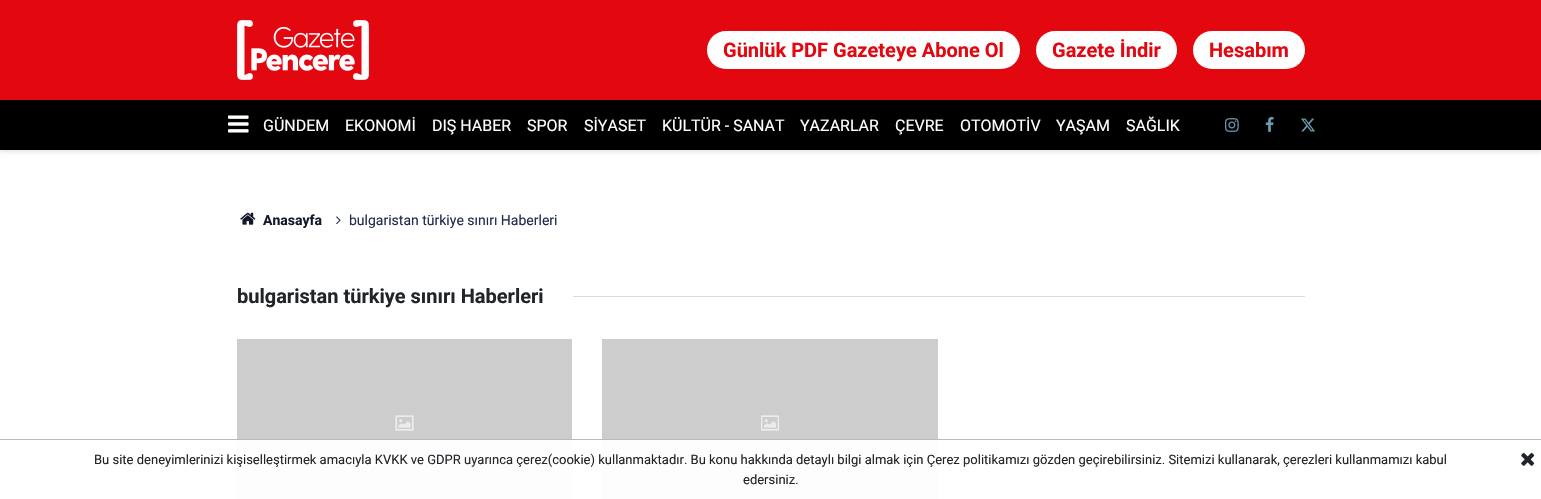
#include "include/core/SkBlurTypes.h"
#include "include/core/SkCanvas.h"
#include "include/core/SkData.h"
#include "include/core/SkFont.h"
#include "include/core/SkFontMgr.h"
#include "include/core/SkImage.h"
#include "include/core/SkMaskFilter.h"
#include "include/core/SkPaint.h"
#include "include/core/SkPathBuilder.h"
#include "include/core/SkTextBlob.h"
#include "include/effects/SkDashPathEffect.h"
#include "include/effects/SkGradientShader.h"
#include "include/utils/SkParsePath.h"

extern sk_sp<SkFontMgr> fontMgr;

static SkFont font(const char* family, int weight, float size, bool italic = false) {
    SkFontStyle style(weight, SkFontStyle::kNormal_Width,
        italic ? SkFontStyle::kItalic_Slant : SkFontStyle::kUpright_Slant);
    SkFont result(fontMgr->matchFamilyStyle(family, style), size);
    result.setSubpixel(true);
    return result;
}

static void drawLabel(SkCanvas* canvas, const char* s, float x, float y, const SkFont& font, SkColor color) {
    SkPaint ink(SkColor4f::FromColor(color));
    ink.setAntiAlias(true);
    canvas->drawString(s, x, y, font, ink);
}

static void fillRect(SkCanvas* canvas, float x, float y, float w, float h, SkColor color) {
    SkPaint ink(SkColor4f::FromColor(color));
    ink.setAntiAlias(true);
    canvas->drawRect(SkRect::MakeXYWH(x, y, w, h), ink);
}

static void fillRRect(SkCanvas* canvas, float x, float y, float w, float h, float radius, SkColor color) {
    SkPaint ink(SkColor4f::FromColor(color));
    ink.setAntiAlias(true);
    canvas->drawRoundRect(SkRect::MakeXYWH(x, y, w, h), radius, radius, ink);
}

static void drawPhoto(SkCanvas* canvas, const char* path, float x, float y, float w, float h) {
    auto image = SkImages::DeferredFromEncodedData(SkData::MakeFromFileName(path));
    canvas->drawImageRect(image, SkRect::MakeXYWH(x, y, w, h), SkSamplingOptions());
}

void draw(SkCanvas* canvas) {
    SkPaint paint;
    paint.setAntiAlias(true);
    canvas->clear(0xFFFFFFFF);
    paint.setColor(0x1A000000);
    paint.setMaskFilter(SkMaskFilter::MakeBlur(kNormal_SkBlurStyle, 2));
    canvas->drawRect(SkRect::MakeXYWH(0, 2, 1541, 150), paint);
    paint.setMaskFilter(nullptr);
    fillRect(canvas, 0, 0, 1541, 100, 0xFFE30710);
    drawPhoto(canvas, "assets/img1.png", 237, 20, 132, 60);
    fillRRect(canvas, 707, 31, 313, 38, 19, 0xFFFFFFFF);
    SkFont font1 = font("Roboto", 700, 20);
    drawLabel(canvas, "Günlük PDF Gazeteye Abone Ol", 723, 57, font1, 0xFFE30710);
    fillRRect(canvas, 1036, 31, 141, 38, 19, 0xFFFFFFFF);
    drawLabel(canvas, "Gazete İndir", 1052, 57, font1, 0xFFE30710);
    fillRRect(canvas, 1193, 31, 112, 38, 19, 0xFFFFFFFF);
    drawLabel(canvas, "Hesabım", 1209, 57, font1, 0xFFE30710);
    fillRect(canvas, 0, 100, 1541, 50, 0xFF000000);
    drawPhoto(canvas, "assets/img2.png", 228, 115, 21, 18);
    SkFont font2 = font("Roboto", 400, 16);
    drawLabel(canvas, "GÜNDEM", 263, 131, font2, 0xFFFFFFFF);
    drawLabel(canvas, "EKONOMİ", 345, 131, font2, 0xFFFFFFFF);
    drawLabel(canvas, "DIŞ HABER", 432, 131, font2, 0xFFFFFFFF);
    drawLabel(canvas, "SPOR", 527, 131, font2, 0xFFFFFFFF);
    drawLabel(canvas, "SİYASET", 584, 131, font2, 0xFFFFFFFF);
    drawLabel(canvas, "KÜLTÜR - SANAT", 662, 131, font2, 0xFFFFFFFF);
    drawLabel(canvas, "YAZARLAR", 800, 131, font2, 0xFFFFFFFF);
    drawLabel(canvas, "ÇEVRE", 895, 131, font2, 0xFFFFFFFF);
    drawLabel(canvas, "OTOMOTİV", 960, 131, font2, 0xFFFFFFFF);
    drawLabel(canvas, "YAŞAM", 1056, 131, font2, 0xFFFFFFFF);
    drawLabel(canvas, "SAĞLIK", 1126, 131, font2, 0xFFFFFFFF);
    drawPhoto(canvas, "assets/img3.png", 1225, 118, 14, 14);
    drawPhoto(canvas, "assets/img4.png", 1265, 117, 9, 15);
    drawPhoto(canvas, "assets/img5.png", 1301, 118, 15, 14);
    drawPhoto(canvas, "assets/img6.png", 240, 212, 16, 13);
    SkFont font3 = font("Roboto", 700, 14);
    drawLabel(canvas, "Anasayfa", 263, 225, font3, 0xFF12182A);
    drawPhoto(canvas, "assets/img7.png", 336, 216, 5, 9);
    SkFont font4 = font("Roboto", 400, 14);
    drawLabel(canvas, "bulgaristan türkiye sınırı Haberleri", 349, 225, font4, 0xFF212C4E);
    drawLabel(canvas, "bulgaristan türkiye sınırı Haberleri", 237, 303, font1, 0xFF212529);
    fillRect(canvas, 573, 296, 732, 1, 0xFFD9DBE2);
    drawPhoto(canvas, "assets/img8.png", 237, 339, 335, 160);
    drawPhoto(canvas, "assets/img9.png", 602, 339, 336, 160);
    fillRect(canvas, 237, 440, 701, 59, 0xF2FFFFFF);
    fillRect(canvas, 0, 439, 1541, 1, 0xFFB9B9B9);
    SkFont font5 = font("Roboto", 400, 13);
    drawLabel(canvas, "Bu site deneyimlerinizi kişiselleştirmek amacıyla KVKK ve GDPR uyarınca çerez(cookie) kullanmaktadır. Bu konu hakkında detaylı bilgi almak için Çerez politikamızı gözden geçirebilirsiniz. Sitemizi kullanarak, çerezleri kullanmamızı kabul", 94, 464, font5, 0xFF212529);
    drawLabel(canvas, "edersiniz.", 743, 484, font5, 0xFF212529);
    drawPhoto(canvas, "assets/img10.png", 1521, 452, 14, 14);
}
